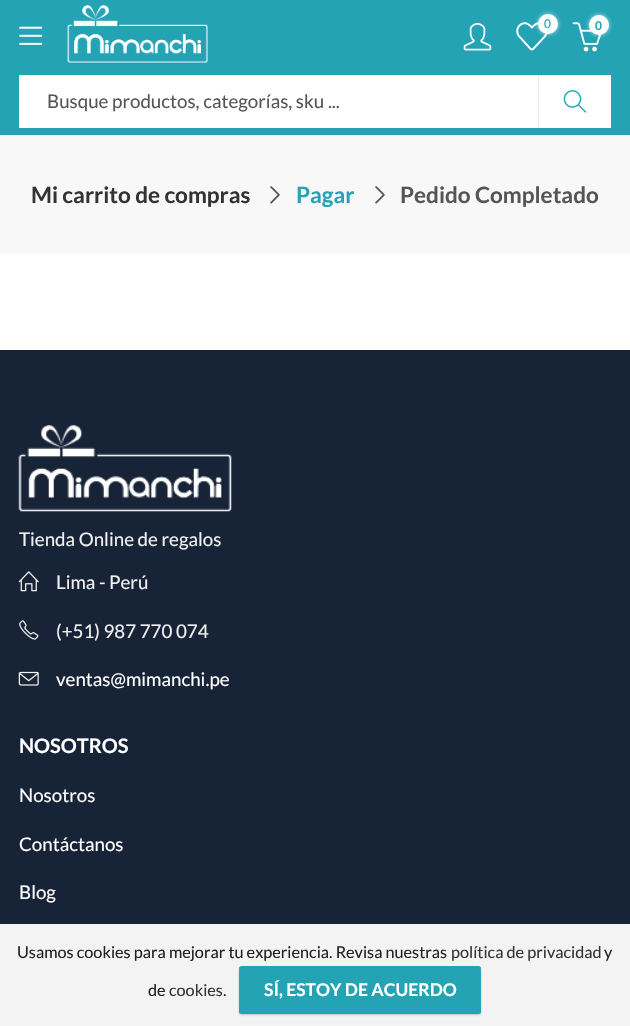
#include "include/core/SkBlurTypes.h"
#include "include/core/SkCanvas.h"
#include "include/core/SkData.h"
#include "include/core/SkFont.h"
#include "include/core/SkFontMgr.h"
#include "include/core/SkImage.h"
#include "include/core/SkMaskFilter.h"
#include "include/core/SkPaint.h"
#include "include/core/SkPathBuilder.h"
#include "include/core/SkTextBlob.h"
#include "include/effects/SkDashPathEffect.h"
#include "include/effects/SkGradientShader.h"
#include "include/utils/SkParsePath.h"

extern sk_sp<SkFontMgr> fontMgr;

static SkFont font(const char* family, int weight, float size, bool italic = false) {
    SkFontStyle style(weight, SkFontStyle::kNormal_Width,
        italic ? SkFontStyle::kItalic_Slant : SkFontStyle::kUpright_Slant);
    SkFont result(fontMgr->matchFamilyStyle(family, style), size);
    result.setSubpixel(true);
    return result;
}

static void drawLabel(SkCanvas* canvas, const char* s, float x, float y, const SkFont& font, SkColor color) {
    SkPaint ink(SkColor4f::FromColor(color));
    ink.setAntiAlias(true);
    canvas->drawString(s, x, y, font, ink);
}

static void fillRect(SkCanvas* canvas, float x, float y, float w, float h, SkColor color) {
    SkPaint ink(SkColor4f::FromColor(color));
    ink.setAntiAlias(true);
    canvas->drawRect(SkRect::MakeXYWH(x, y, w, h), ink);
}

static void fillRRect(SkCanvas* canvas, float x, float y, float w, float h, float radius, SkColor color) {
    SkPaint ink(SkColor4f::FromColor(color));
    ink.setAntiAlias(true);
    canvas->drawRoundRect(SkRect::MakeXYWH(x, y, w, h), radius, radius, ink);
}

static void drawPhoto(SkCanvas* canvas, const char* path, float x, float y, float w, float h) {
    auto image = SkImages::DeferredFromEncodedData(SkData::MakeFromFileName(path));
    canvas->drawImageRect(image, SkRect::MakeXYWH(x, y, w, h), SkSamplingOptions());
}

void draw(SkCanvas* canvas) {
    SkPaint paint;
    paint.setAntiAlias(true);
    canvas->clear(0xFFFFFFFF);
    fillRect(canvas, 0, 0, 630, 135, 0xFF24A3B5);
    drawPhoto(canvas, "assets/img1.png", 19, 26, 24, 19);
    drawPhoto(canvas, "assets/img2.png", 67, 5, 141, 58);
    drawPhoto(canvas, "assets/img3.png", 463, 23, 29, 28);
    drawPhoto(canvas, "assets/img4.png", 516, 22, 32, 29);
    paint.setColor(0xB3FFFFFF);
    paint.setMaskFilter(SkMaskFilter::MakeBlur(kNormal_SkBlurStyle, 2));
    canvas->drawRoundRect(SkRect::MakeXYWH(538, 14, 20, 20), 10, 10, paint);
    paint.setMaskFilter(nullptr);
    paint.setColor(0xFFFFFFFF);
    canvas->drawCircle(548, 24, 10, paint);
    SkFont font1 = font("Lato", 400, 12);
    drawLabel(canvas, "0", 544, 28, font1, 0xFF24A3B5);
    drawPhoto(canvas, "assets/img5.png", 572, 22, 30, 30);
    paint.setColor(0xB3FFFFFF);
    paint.setMaskFilter(SkMaskFilter::MakeBlur(kNormal_SkBlurStyle, 2));
    canvas->drawRoundRect(SkRect::MakeXYWH(589, 15, 20, 20), 10, 10, paint);
    paint.setMaskFilter(nullptr);
    paint.setColor(0xFFFFFFFF);
    canvas->drawCircle(599, 25, 10, paint);
    SkFont font2 = font("Lato", 700, 12);
    drawLabel(canvas, "0", 595, 30, font2, 0xFF24A3B5);
    fillRect(canvas, 19, 75, 519, 53, 0xFFFFFFFF);
    fillRect(canvas, 538, 75, 1, 53, 0xFFE9E9E9);
    SkFont font3 = font("Lato", 400, 18.75f);
    drawLabel(canvas, "Busque productos, categorías, sku ...", 47, 108, font3, 0xFF555555);
    fillRect(canvas, 539, 75, 72, 53, 0xFFFFFFFF);
    drawPhoto(canvas, "assets/img6.png", 563, 90, 24, 23);
    fillRect(canvas, 0, 135, 630, 119, 0xFFF8F8F8);
    SkFont font4 = font("Lato", 700, 22.5f);
    drawLabel(canvas, "Mi carrito de compras", 31, 203, font4, 0xFF333333);
    drawPhoto(canvas, "assets/img7.png", 270, 186, 10, 18);
    drawLabel(canvas, "Pagar", 296, 203, font4, 0xFF24A3B5);
    drawPhoto(canvas, "assets/img7.png", 375, 186, 10, 18);
    drawLabel(canvas, "Pedido Completado", 400, 203, font4, 0xFF555555);
    fillRect(canvas, 0, 350, 630, 574, 0xFF172337);
    fillRect(canvas, 0, 924, 630, 102, 0xFFF3F3F4);
    drawPhoto(canvas, "assets/img8.png", 18, 425, 214, 87);
    drawLabel(canvas, "Tienda Online de regalos", 19, 546, font3, 0xFFF1F1F1);
    drawPhoto(canvas, "assets/img9.png", 18, 571, 21, 21);
    drawLabel(canvas, "Lima - Perú", 56, 589, font3, 0xFFF1F1F1);
    drawPhoto(canvas, "assets/img10.png", 19, 620, 20, 20);
    drawLabel(canvas, "(+51) 987 770 074", 56, 638, font3, 0xFFF1F1F1);
    drawPhoto(canvas, "assets/img11.png", 18, 671, 21, 15);
    drawLabel(canvas, "ventas@mimanchi.pe", 56, 686, font3, 0xFFFFFFFF);
    SkFont font5 = font("Lato", 700, 20);
    drawLabel(canvas, "NOSOTROS", 19, 753, font5, 0xFFFFFFFF);
    drawLabel(canvas, "Nosotros", 19, 802, font3, 0xFFFFFFFF);
    drawLabel(canvas, "Contáctanos", 19, 851, font3, 0xFFFFFFFF);
    drawLabel(canvas, "Blog", 19, 899, font3, 0xFFFFFFFF);
    SkFont font6 = font("Lato", 400, 16.25f);
    drawLabel(canvas, "Usamos cookies para mejorar tu experiencia. Revisa nuestras", 17, 958, font6, 0xFF212121);
    drawLabel(canvas, "política de privacidad", 451, 958, font6, 0xFF333333);
    drawLabel(canvas, "y", 604, 958, font6, 0xFF212121);
    drawLabel(canvas, "de", 148, 996, font6, 0xFF212121);
    drawLabel(canvas, "cookies", 169, 996, font6, 0xFF333333);
    drawLabel(canvas, ".", 223, 996, font6, 0xFF212121);
    paint.setColor(0x33000000);
    paint.setMaskFilter(SkMaskFilter::MakeBlur(kNormal_SkBlurStyle, 1));
    canvas->drawRoundRect(SkRect::MakeXYWH(239, 968, 242, 47), 2.5f, 2.5f, paint);
    paint.setMaskFilter(nullptr);
    fillRRect(canvas, 239, 966, 242, 48, 2.5f, 0xFF24A3B5);
    SkFont font7 = font("Lato", 700, 17.5f);
    drawLabel(canvas, "SÍ, ESTOY DE ACUERDO", 264, 996, font7, 0xFFFFFFFF);
}
